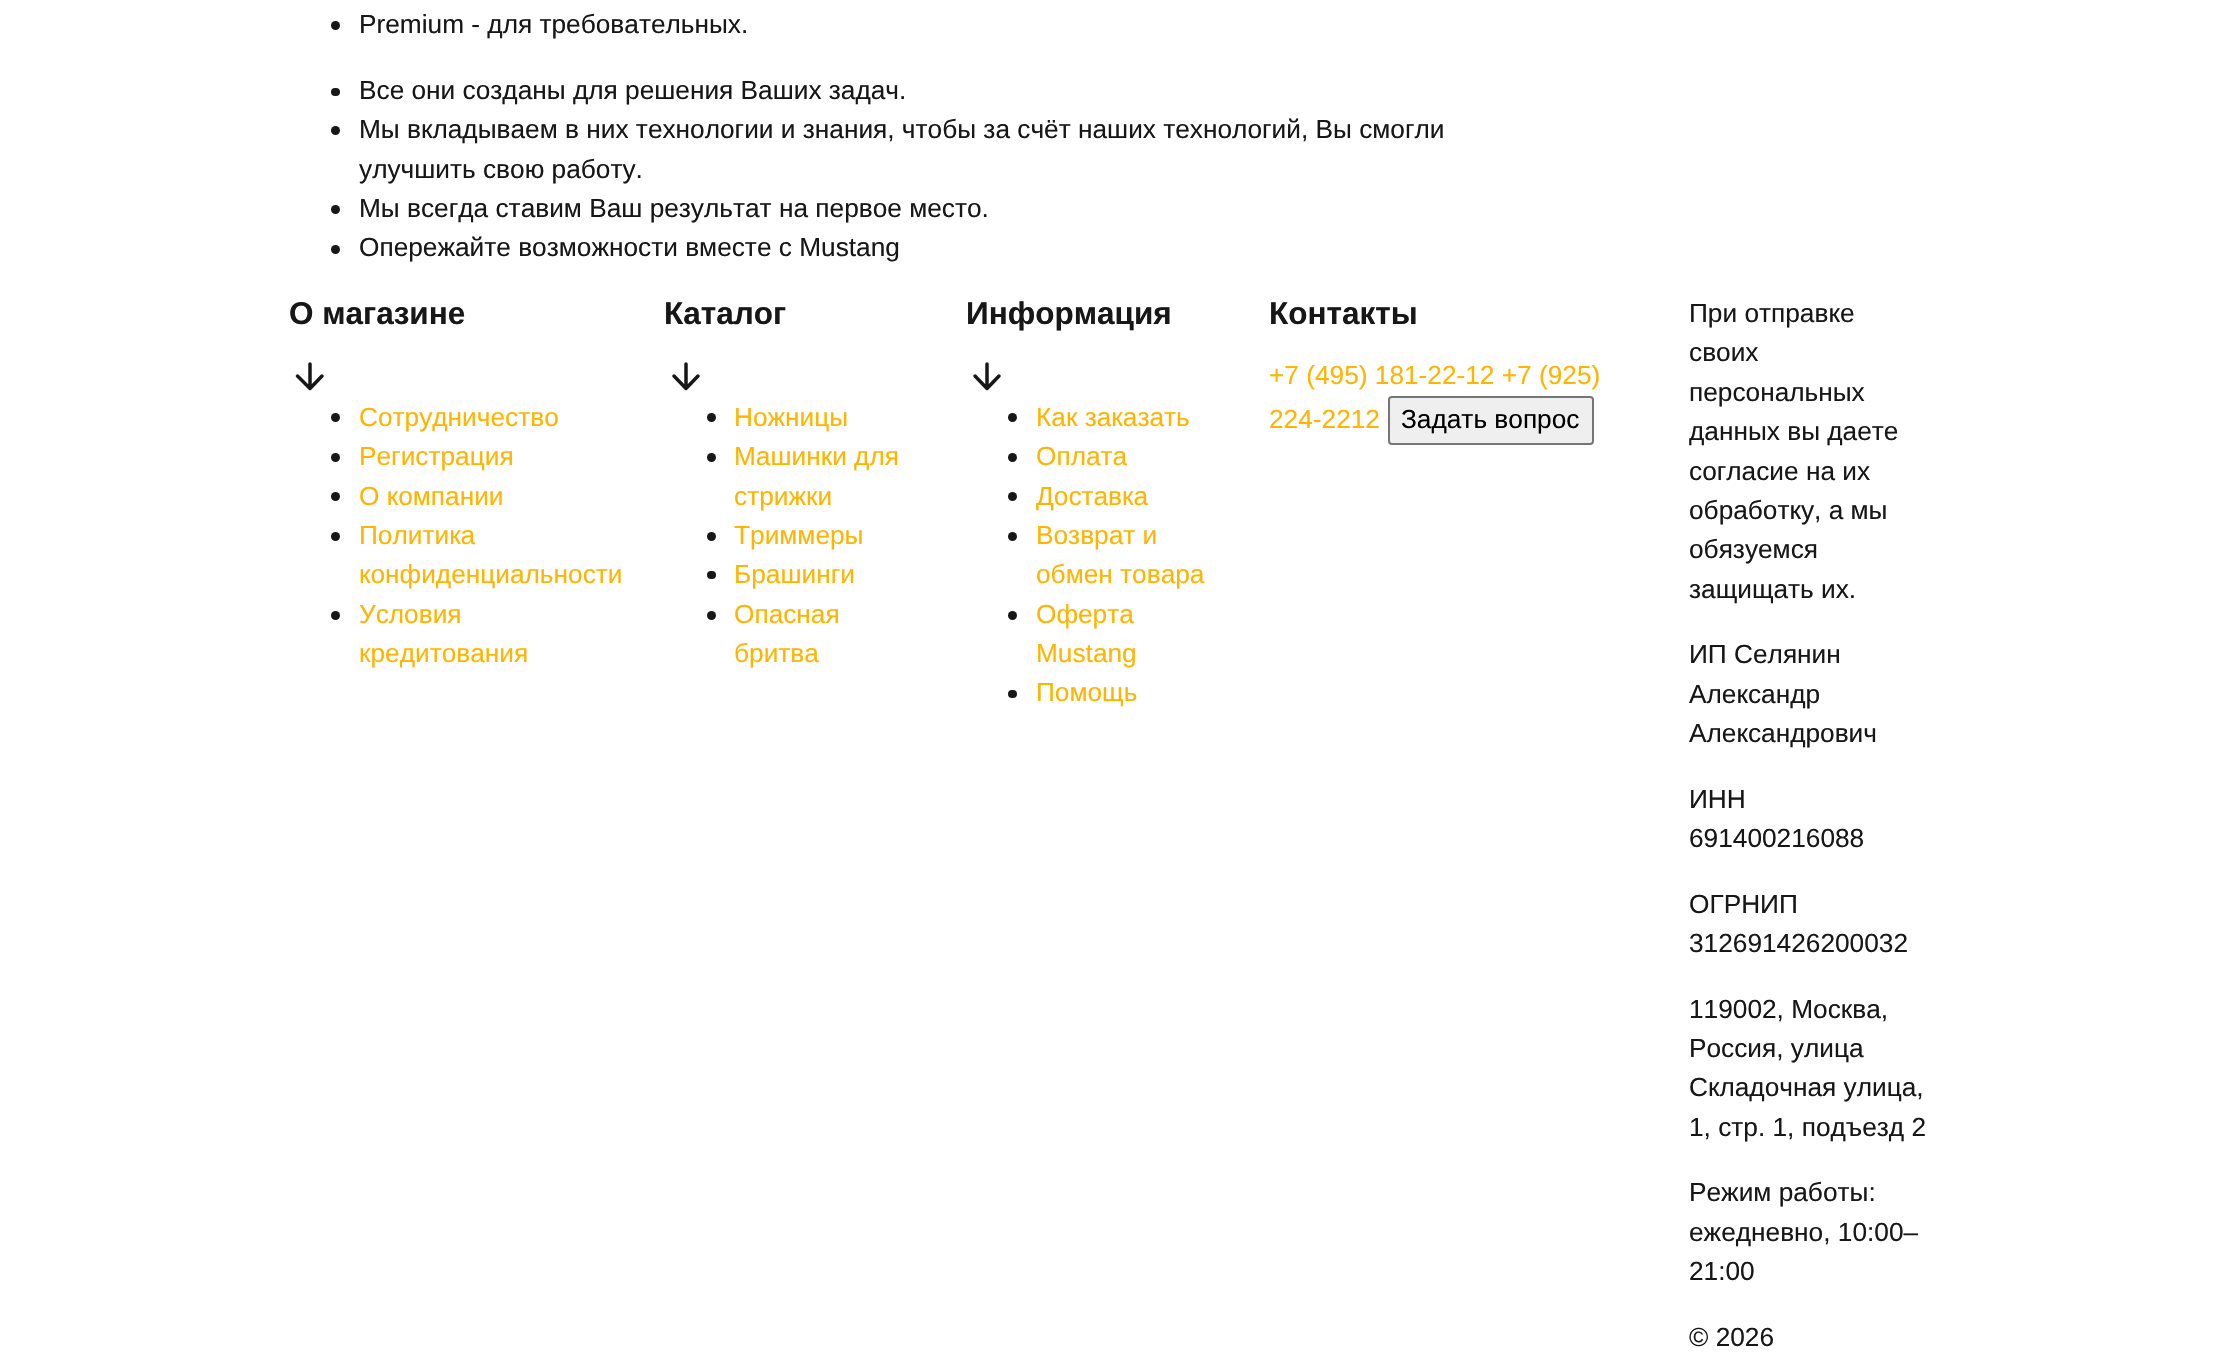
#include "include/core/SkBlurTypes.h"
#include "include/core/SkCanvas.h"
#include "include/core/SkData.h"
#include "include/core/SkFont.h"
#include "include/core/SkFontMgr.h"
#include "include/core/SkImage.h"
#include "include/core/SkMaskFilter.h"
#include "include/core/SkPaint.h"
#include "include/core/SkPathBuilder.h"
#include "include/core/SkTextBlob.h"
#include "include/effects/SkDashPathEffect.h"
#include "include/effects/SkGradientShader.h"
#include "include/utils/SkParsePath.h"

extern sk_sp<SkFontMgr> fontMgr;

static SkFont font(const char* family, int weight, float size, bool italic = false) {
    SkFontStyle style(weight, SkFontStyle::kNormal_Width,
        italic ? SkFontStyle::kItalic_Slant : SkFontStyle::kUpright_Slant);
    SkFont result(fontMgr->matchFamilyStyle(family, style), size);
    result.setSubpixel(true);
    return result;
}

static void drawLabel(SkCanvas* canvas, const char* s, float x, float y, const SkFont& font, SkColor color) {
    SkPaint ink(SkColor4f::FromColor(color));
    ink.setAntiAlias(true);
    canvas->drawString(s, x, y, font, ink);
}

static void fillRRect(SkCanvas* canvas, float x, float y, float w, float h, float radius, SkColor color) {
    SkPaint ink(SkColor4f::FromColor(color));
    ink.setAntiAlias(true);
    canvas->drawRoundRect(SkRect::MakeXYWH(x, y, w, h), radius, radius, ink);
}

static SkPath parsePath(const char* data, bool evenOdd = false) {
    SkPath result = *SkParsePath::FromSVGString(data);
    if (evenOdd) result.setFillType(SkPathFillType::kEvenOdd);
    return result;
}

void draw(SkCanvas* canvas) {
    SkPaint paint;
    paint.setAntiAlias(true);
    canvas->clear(0xFFFFFFFF);
    paint.setColor(0xFF171717);
    canvas->drawCircle(335.5f, 25.5f, 4.5f, paint);
    SkFont font1 = font("Liberation Sans", 400, 26.25f);
    drawLabel(canvas, "Premium - для требовательных.", 359, 33, font1, 0xFF171717);
    fillRRect(canvas, 331, 88, 9, 8, 4, 0xFF171717);
    drawLabel(canvas, "Все они созданы для решения Ваших задач.", 359, 99, font1, 0xFF171717);
    canvas->drawCircle(335.5f, 130.5f, 4.5f, paint);
    drawLabel(canvas, "Мы вкладываем в них технологии и знания, чтобы за счёт наших технологий, Вы смогли", 359, 138, font1, 0xFF171717);
    drawLabel(canvas, "улучшить свою работу.", 359, 178, font1, 0xFF171717);
    canvas->drawCircle(335.5f, 209.5f, 4.5f, paint);
    drawLabel(canvas, "Мы всегда ставим Ваш результат на первое место.", 359, 217, font1, 0xFF171717);
    canvas->drawCircle(335.5f, 249.5f, 4.5f, paint);
    drawLabel(canvas, "Опережайте возможности вместе с Mustang", 359, 256, font1, 0xFF171717);
    SkFont font2 = font("Liberation Sans", 700, 31.5f);
    drawLabel(canvas, "О магазине", 289, 324, font2, 0xFF171717);
    paint.setStroke(true);
    paint.setStrokeWidth(3.5f);
    paint.setStrokeCap(SkPaint::kRound_Cap);
    paint.setStrokeJoin(SkPaint::kRound_Join);
    canvas->drawPath(parsePath("M310 364V388.5M322 376L310 388.5L297.5 376"), paint);
    paint.setStroke(false);
    canvas->drawCircle(335.5f, 417.5f, 4.5f, paint);
    drawLabel(canvas, "Сотрудничество", 359, 426, font1, 0xFFFFB400);
    canvas->drawCircle(335.5f, 457.5f, 4.5f, paint);
    drawLabel(canvas, "Регистрация", 359, 465, font1, 0xFFFFB400);
    canvas->drawCircle(335.5f, 496.5f, 4.5f, paint);
    drawLabel(canvas, "О компании", 359, 505, font1, 0xFFFFB400);
    canvas->drawCircle(335.5f, 536.5f, 4.5f, paint);
    drawLabel(canvas, "Политика", 359, 544, font1, 0xFFFFB400);
    drawLabel(canvas, "конфиденциальности", 359, 583, font1, 0xFFFFB400);
    canvas->drawCircle(335.5f, 615.5f, 4.5f, paint);
    drawLabel(canvas, "Условия", 359, 623, font1, 0xFFFFB400);
    drawLabel(canvas, "кредитования", 359, 662, font1, 0xFFFFB400);
    drawLabel(canvas, "Каталог", 664, 324, font2, 0xFF171717);
    paint.setStroke(true);
    canvas->drawPath(parsePath("M686 364V388.5M698 376L686 388.5L674 376"), paint);
    paint.setStroke(false);
    canvas->drawCircle(711.5f, 417.5f, 4.5f, paint);
    drawLabel(canvas, "Ножницы", 734, 426, font1, 0xFFFFB400);
    canvas->drawCircle(711.5f, 457.5f, 4.5f, paint);
    drawLabel(canvas, "Машинки для", 734, 465, font1, 0xFFFFB400);
    drawLabel(canvas, "стрижки", 734, 505, font1, 0xFFFFB400);
    canvas->drawCircle(711.5f, 536.5f, 4.5f, paint);
    drawLabel(canvas, "Триммеры", 734, 544, font1, 0xFFFFB400);
    fillRRect(canvas, 707, 571, 9, 8, 4, 0xFF171717);
    drawLabel(canvas, "Брашинги", 734, 583, font1, 0xFFFFB400);
    canvas->drawCircle(711.5f, 615.5f, 4.5f, paint);
    drawLabel(canvas, "Опасная", 734, 623, font1, 0xFFFFB400);
    drawLabel(canvas, "бритва", 734, 662, font1, 0xFFFFB400);
    drawLabel(canvas, "Информация", 966, 324, font2, 0xFF171717);
    paint.setStroke(true);
    canvas->drawPath(parsePath("M987 364V388.5M999 376L987 388.5L975 376"), paint);
    paint.setStroke(false);
    canvas->drawCircle(1012.5f, 417.5f, 4.5f, paint);
    drawLabel(canvas, "Как заказать", 1036, 426, font1, 0xFFFFB400);
    canvas->drawCircle(1012.5f, 457.5f, 4.5f, paint);
    drawLabel(canvas, "Оплата", 1036, 465, font1, 0xFFFFB400);
    canvas->drawCircle(1012.5f, 496.5f, 4.5f, paint);
    drawLabel(canvas, "Доставка", 1036, 505, font1, 0xFFFFB400);
    canvas->drawCircle(1012.5f, 536.5f, 4.5f, paint);
    drawLabel(canvas, "Возврат и", 1036, 544, font1, 0xFFFFB400);
    drawLabel(canvas, "обмен товара", 1036, 583, font1, 0xFFFFB400);
    canvas->drawCircle(1012.5f, 615.5f, 4.5f, paint);
    drawLabel(canvas, "Оферта", 1036, 623, font1, 0xFFFFB400);
    drawLabel(canvas, "Mustang", 1036, 662, font1, 0xFFFFB400);
    fillRRect(canvas, 1008, 690, 9, 8, 4, 0xFF171717);
    drawLabel(canvas, "Помощь", 1036, 701, font1, 0xFFFFB400);
    drawLabel(canvas, "Контакты", 1269, 324, font2, 0xFF171717);
    drawLabel(canvas, "+7 (495) 181-22-12 +7 (925)", 1269, 384, font1, 0xFFFFB400);
    drawLabel(canvas, "224-2212", 1269, 428, font1, 0xFFFFB400);
    paint.setColor(0xFFEFEFEF);
    canvas->drawRoundRect(SkRect::MakeXYWH(1389, 397, 204, 47), 3, 3, paint);
    paint.setStroke(true);
    paint.setStrokeWidth(2);
    paint.setStrokeCap(SkPaint::kButt_Cap);
    paint.setStrokeJoin(SkPaint::kMiter_Join);
    paint.setColor(0xFF767676);
    canvas->drawRoundRect(SkRect::MakeXYWH(1389, 397, 204, 47), 3, 3, paint);
    drawLabel(canvas, "Задать вопрос", 1401, 428, font1, 0xFF000000);
    drawLabel(canvas, "При отправке", 1689, 322, font1, 0xFF171717);
    drawLabel(canvas, "своих", 1689, 361, font1, 0xFF171717);
    drawLabel(canvas, "персональных", 1689, 401, font1, 0xFF171717);
    drawLabel(canvas, "данных вы даете", 1689, 440, font1, 0xFF171717);
    drawLabel(canvas, "согласие на их", 1689, 480, font1, 0xFF171717);
    drawLabel(canvas, "обработку, а мы", 1689, 519, font1, 0xFF171717);
    drawLabel(canvas, "обязуемся", 1689, 558, font1, 0xFF171717);
    drawLabel(canvas, "защищать их.", 1689, 598, font1, 0xFF171717);
    drawLabel(canvas, "ИП Селянин", 1689, 663, font1, 0xFF171717);
    drawLabel(canvas, "Александр", 1689, 703, font1, 0xFF171717);
    drawLabel(canvas, "Александрович", 1689, 742, font1, 0xFF171717);
    drawLabel(canvas, "ИНН", 1689, 808, font1, 0xFF171717);
    drawLabel(canvas, "691400216088", 1689, 847, font1, 0xFF171717);
    drawLabel(canvas, "ОГРНИП", 1689, 913, font1, 0xFF171717);
    drawLabel(canvas, "312691426200032", 1689, 952, font1, 0xFF171717);
    drawLabel(canvas, "119002, Москва,", 1689, 1018, font1, 0xFF171717);
    drawLabel(canvas, "Россия, улица", 1689, 1057, font1, 0xFF171717);
    drawLabel(canvas, "Складочная улица,", 1689, 1096, font1, 0xFF171717);
    drawLabel(canvas, "1, стр. 1, подъезд 2", 1689, 1136, font1, 0xFF171717);
    drawLabel(canvas, "Режим работы:", 1689, 1201, font1, 0xFF171717);
    drawLabel(canvas, "ежедневно, 10:00–", 1689, 1241, font1, 0xFF171717);
    drawLabel(canvas, "21:00", 1689, 1280, font1, 0xFF171717);
    drawLabel(canvas, "© 2026", 1689, 1346, font1, 0xFF171717);
}
